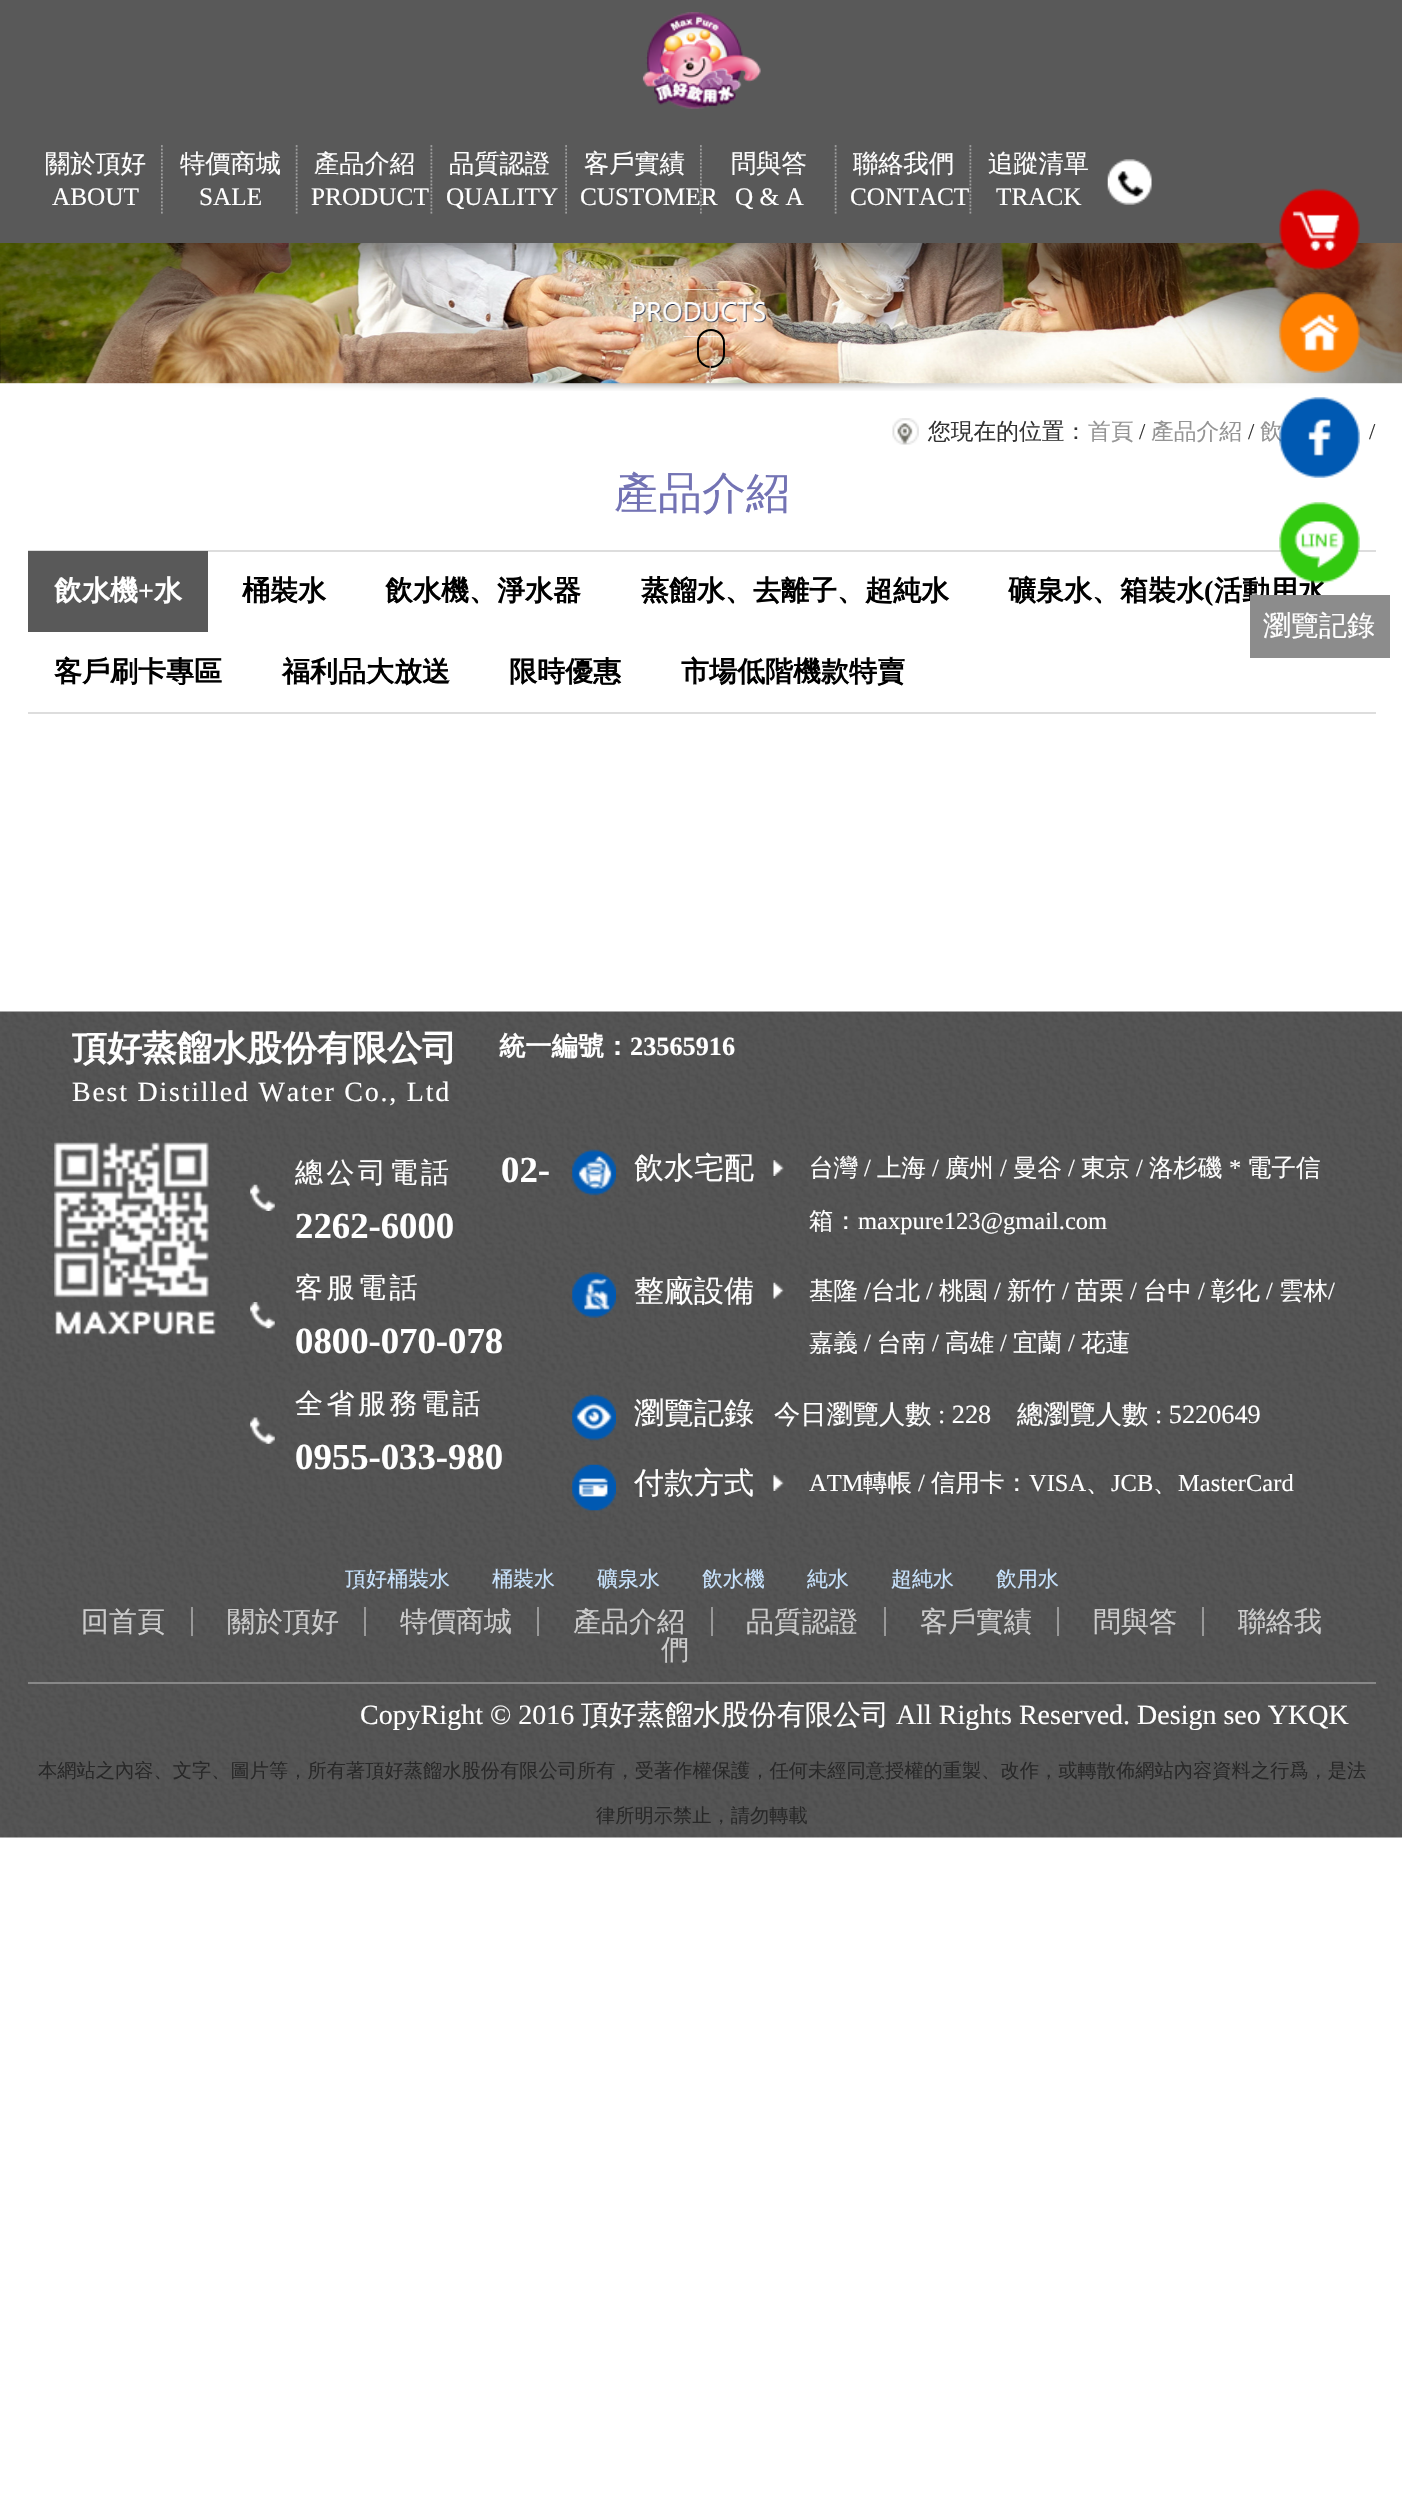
#include "include/core/SkBlurTypes.h"
#include "include/core/SkCanvas.h"
#include "include/core/SkData.h"
#include "include/core/SkFont.h"
#include "include/core/SkFontMgr.h"
#include "include/core/SkImage.h"
#include "include/core/SkMaskFilter.h"
#include "include/core/SkPaint.h"
#include "include/core/SkPathBuilder.h"
#include "include/core/SkTextBlob.h"
#include "include/effects/SkDashPathEffect.h"
#include "include/effects/SkGradientShader.h"
#include "include/utils/SkParsePath.h"

extern sk_sp<SkFontMgr> fontMgr;

static SkFont font(const char* family, int weight, float size, bool italic = false) {
    SkFontStyle style(weight, SkFontStyle::kNormal_Width,
        italic ? SkFontStyle::kItalic_Slant : SkFontStyle::kUpright_Slant);
    SkFont result(fontMgr->matchFamilyStyle(family, style), size);
    result.setSubpixel(true);
    return result;
}

static void drawLabel(SkCanvas* canvas, const char* s, float x, float y, const SkFont& font, SkColor color) {
    SkPaint ink(SkColor4f::FromColor(color));
    ink.setAntiAlias(true);
    canvas->drawString(s, x, y, font, ink);
}

static void drawTracked(SkCanvas* canvas, const char* s, float x, float y, const SkFont& font, const SkPaint& ink, float letter, float word) {
    std::vector<SkGlyphID> glyphs(font.countText(s, strlen(s), SkTextEncoding::kUTF8));
    std::vector<float> xs(glyphs.size());
    font.textToGlyphs(s, strlen(s), SkTextEncoding::kUTF8, glyphs);
    font.getXPos(glyphs, xs, x);
    float extra = 0;
    for (size_t i = 0; i < glyphs.size(); i++) {
        xs[i] += extra;
        extra += letter + word * (glyphs[i] == font.unicharToGlyph(' '));
    }
    canvas->drawTextBlob(SkTextBlob::MakeFromPosHGlyphs(glyphs, xs, y, font), 0, 0, ink);
}

static void fillRect(SkCanvas* canvas, float x, float y, float w, float h, SkColor color) {
    SkPaint ink(SkColor4f::FromColor(color));
    ink.setAntiAlias(true);
    canvas->drawRect(SkRect::MakeXYWH(x, y, w, h), ink);
}

static void drawPhoto(SkCanvas* canvas, const char* path, float x, float y, float w, float h) {
    auto image = SkImages::DeferredFromEncodedData(SkData::MakeFromFileName(path));
    canvas->drawImageRect(image, SkRect::MakeXYWH(x, y, w, h), SkSamplingOptions());
}

void draw(SkCanvas* canvas) {
    SkPaint paint;
    paint.setAntiAlias(true);
    canvas->clear(0xFFFFFFFF);
    fillRect(canvas, 0, 0, 1402, 243, 0xFF595959);
    drawPhoto(canvas, "assets/img1.png", 642, 12, 119, 97);
    drawPhoto(canvas, "assets/img2.png", 161, 145, 2, 69);
    SkFont font1 = font("WenQuanYi Zen Hei", 500, 25.25f);
    drawLabel(canvas, "關於頂好", 45, 172, font1, 0xFFFFFFFF);
    SkFont font2 = font("Liberation Serif", 400, 25.25f);
    drawLabel(canvas, "ABOUT", 52, 205, font2, 0xFFFFFFFF);
    drawPhoto(canvas, "assets/img3.png", 295, 145, 3, 69);
    drawLabel(canvas, "特價商城", 180, 172, font1, 0xFFFFFFFF);
    drawLabel(canvas, "SALE", 199, 205, font2, 0xFFFFFFFF);
    drawPhoto(canvas, "assets/img4.png", 430, 145, 3, 69);
    drawLabel(canvas, "產品介紹", 314, 172, font1, 0xFFFFFFFF);
    drawLabel(canvas, "PRODUCT", 311, 205, font2, 0xFFFFFFFF);
    drawPhoto(canvas, "assets/img5.png", 565, 145, 2, 69);
    drawLabel(canvas, "品質認證", 449, 172, font1, 0xFFFFFFFF);
    drawLabel(canvas, "QUALITY", 446, 205, font2, 0xFFFFFFFF);
    drawPhoto(canvas, "assets/img2.png", 700, 145, 2, 69);
    drawLabel(canvas, "客戶實績", 584, 172, font1, 0xFFFFFFFF);
    drawLabel(canvas, "CUSTOMER", 580, 205, font2, 0xFFFFFFFF);
    drawPhoto(canvas, "assets/img3.png", 834, 145, 3, 69);
    drawLabel(canvas, "問與答", 731, 172, font1, 0xFFFFFFFF);
    drawLabel(canvas, "Q & A", 735, 205, font2, 0xFFFFFFFF);
    drawPhoto(canvas, "assets/img4.png", 969, 145, 3, 69);
    drawLabel(canvas, "聯絡我們", 853, 172, font1, 0xFFFFFFFF);
    drawLabel(canvas, "CONTACT", 850, 205, font2, 0xFFFFFFFF);
    drawLabel(canvas, "追蹤清單", 988, 172, font1, 0xFFFFFFFF);
    drawLabel(canvas, "TRACK", 996, 205, font2, 0xFFFFFFFF);
    drawPhoto(canvas, "assets/img6.png", 1107, 159, 45, 46);
    drawPhoto(canvas, "assets/img7.png", 0, 243, 1402, 148);
    paint.setStroke(true);
    paint.setStrokeWidth(2);
    paint.setColor(0xFF000000);
    canvas->drawRoundRect(SkRect::MakeXYWH(698, 330, 26, 37), 13, 13, paint);
    SkFont font3 = font("Liberation Sans", 700, 29);
    drawLabel(canvas, "↓", 703, 382, font3, 0xFFBD9D89);
    drawPhoto(canvas, "assets/img8.png", 892, 418, 27, 27);
    SkFont font4 = font("WenQuanYi Zen Hei", 500, 22.75f);
    drawLabel(canvas, "您現在的位置：", 928, 439, font4, 0xFF333333);
    drawLabel(canvas, "首頁", 1088, 439, font4, 0xFF949494);
    SkFont font5 = font("Liberation Serif", 400, 22.75f);
    drawLabel(canvas, "/", 1139, 439, font5, 0xFF333333);
    drawLabel(canvas, "產品介紹", 1151, 439, font4, 0xFF949494);
    drawLabel(canvas, "/", 1248, 439, font5, 0xFF333333);
    drawLabel(canvas, "飲", 1260, 439, font4, 0xFF949494);
    drawLabel(canvas, "/", 1369, 439, font5, 0xFF333333);
    SkFont font6 = font("WenQuanYi Zen Hei", 500, 44);
    drawLabel(canvas, "產品介紹", 614, 508, font6, 0xFF7373B4);
    fillRect(canvas, 28, 550, 1348, 2, 0xFFDDDDDD);
    fillRect(canvas, 28, 712, 1348, 2, 0xFFDDDDDD);
    fillRect(canvas, 28, 551, 180, 81, 0xFF595959);
    SkFont font7 = font("WenQuanYi Zen Hei", 700, 28);
    drawLabel(canvas, "飲水機", 54, 600, font7, 0xFFFFFFFF);
    SkFont font8 = font("Liberation Serif", 700, 28);
    drawLabel(canvas, "+", 138, 600, font8, 0xFFFFFFFF);
    drawLabel(canvas, "水", 154, 600, font7, 0xFFFFFFFF);
    drawLabel(canvas, "桶裝水", 242, 600, font7, 0xFF000000);
    drawLabel(canvas, "飲水機、淨水器", 385, 600, font7, 0xFF000000);
    drawLabel(canvas, "蒸餾水、去離子、超純水", 641, 600, font7, 0xFF000000);
    drawLabel(canvas, "礦泉水、箱裝水", 1008, 600, font7, 0xFF000000);
    drawLabel(canvas, "(", 1204, 600, font8, 0xFF000000);
    drawLabel(canvas, "活動用水", 1214, 600, font7, 0xFF000000);
    drawLabel(canvas, "客戶刷卡專區", 54, 681, font7, 0xFF000000);
    drawLabel(canvas, "福利品大放送", 282, 681, font7, 0xFF000000);
    drawLabel(canvas, "限時優惠", 509, 681, font7, 0xFF000000);
    drawLabel(canvas, "市場低階機款特賣", 681, 681, font7, 0xFF000000);
    drawPhoto(canvas, "assets/img9.png", 1279, 188, 81, 82);
    drawPhoto(canvas, "assets/img10.png", 1279, 292, 81, 81);
    drawPhoto(canvas, "assets/img11.png", 1279, 397, 81, 81);
    drawPhoto(canvas, "assets/img12.png", 1279, 502, 81, 81);
    fillRect(canvas, 1250, 595, 140, 63, 0xFF8C8C8C);
    SkFont font9 = font("WenQuanYi Zen Hei", 500, 28);
    drawLabel(canvas, "瀏覽記錄", 1263, 635, font9, 0xFFFFFFFF);
    drawPhoto(canvas, "assets/img13.png", 0, 1011, 1402, 827);
    SkFont font10 = font("WenQuanYi Zen Hei", 700, 35);
    drawLabel(canvas, "頂好蒸餾水股份有限公司", 72, 1060, font10, 0xFFFFFFFF);
    SkFont font11 = font("WenQuanYi Zen Hei", 700, 26.25f);
    drawLabel(canvas, "統一編號：", 499, 1055, font11, 0xFFFFFFFF);
    SkFont font12 = font("Liberation Serif", 700, 26.25f);
    drawLabel(canvas, "23565916", 630, 1055, font12, 0xFFFFFFFF);
    SkFont font13 = font("Liberation Serif", 400, 28);
    paint.setStroke(false);
    paint.setColor(0xFFFFFFFF);
    drawTracked(canvas, "Best Distilled Water Co., Ltd", 72, 1101, font13, paint, 1.75f, 0);
    drawPhoto(canvas, "assets/img14.png", 54, 1142, 162, 194);
    drawPhoto(canvas, "assets/img15.png", 250, 1184, 25, 27);
    drawTracked(canvas, "總公司電話", 295, 1182, font9, paint, 3.5f, 0);
    SkFont font14 = font("Liberation Serif", 700, 36.75f);
    drawLabel(canvas, "02-", 501, 1182, font14, 0xFFFFFFFF);
    drawLabel(canvas, "2262-6000", 295, 1238, font14, 0xFFFFFFFF);
    drawPhoto(canvas, "assets/img16.png", 250, 1302, 25, 27);
    drawTracked(canvas, "客服電話", 295, 1297, font9, paint, 3.5f, 0);
    drawLabel(canvas, "0800-070-078", 295, 1353, font14, 0xFFFFFFFF);
    drawPhoto(canvas, "assets/img17.png", 250, 1417, 25, 27);
    drawTracked(canvas, "全省服務電話", 295, 1413, font9, paint, 3.5f, 0);
    drawLabel(canvas, "0955-033-980", 295, 1469, font14, 0xFFFFFFFF);
    drawPhoto(canvas, "assets/img18.png", 572, 1149, 44, 47);
    SkFont font15 = font("WenQuanYi Zen Hei", 500, 30);
    drawLabel(canvas, "飲水宅配", 634, 1178, font15, 0xFFFFFFFF);
    drawPhoto(canvas, "assets/img19.png", 773, 1160, 11, 16);
    SkFont font16 = font("WenQuanYi Zen Hei", 500, 24.5f);
    drawLabel(canvas, "台灣", 809, 1176, font16, 0xFFFFFFFF);
    SkFont font17 = font("Liberation Serif", 400, 24.5f);
    drawLabel(canvas, "/", 864, 1176, font17, 0xFFFFFFFF);
    drawLabel(canvas, "上海", 877, 1176, font16, 0xFFFFFFFF);
    drawLabel(canvas, "/", 932, 1176, font17, 0xFFFFFFFF);
    drawLabel(canvas, "廣州", 945, 1176, font16, 0xFFFFFFFF);
    drawLabel(canvas, "/", 1000, 1176, font17, 0xFFFFFFFF);
    drawLabel(canvas, "曼谷", 1013, 1176, font16, 0xFFFFFFFF);
    drawLabel(canvas, "/", 1068, 1176, font17, 0xFFFFFFFF);
    drawLabel(canvas, "東京", 1081, 1176, font16, 0xFFFFFFFF);
    drawLabel(canvas, "/", 1136, 1176, font17, 0xFFFFFFFF);
    drawLabel(canvas, "洛杉磯", 1149, 1176, font16, 0xFFFFFFFF);
    drawLabel(canvas, "*", 1229, 1176, font17, 0xFFFFFFFF);
    drawLabel(canvas, "電子信", 1247, 1176, font16, 0xFFFFFFFF);
    drawLabel(canvas, "箱：", 809, 1229, font16, 0xFFFFFFFF);
    drawLabel(canvas, "maxpure123@gmail.com", 858, 1229, font17, 0xFFFFFFFF);
    drawPhoto(canvas, "assets/img20.png", 572, 1272, 44, 46);
    drawLabel(canvas, "整廠設備", 634, 1301, font15, 0xFFFFFFFF);
    drawPhoto(canvas, "assets/img21.png", 773, 1282, 11, 17);
    drawLabel(canvas, "基隆", 809, 1299, font16, 0xFFFFFFFF);
    drawLabel(canvas, "/", 864, 1299, font17, 0xFFFFFFFF);
    drawLabel(canvas, "台北", 871, 1299, font16, 0xFFFFFFFF);
    drawLabel(canvas, "/", 926, 1299, font17, 0xFFFFFFFF);
    drawLabel(canvas, "桃園", 939, 1299, font16, 0xFFFFFFFF);
    drawLabel(canvas, "/", 994, 1299, font17, 0xFFFFFFFF);
    drawLabel(canvas, "新竹", 1007, 1299, font16, 0xFFFFFFFF);
    drawLabel(canvas, "/", 1062, 1299, font17, 0xFFFFFFFF);
    drawLabel(canvas, "苗栗", 1075, 1299, font16, 0xFFFFFFFF);
    drawLabel(canvas, "/", 1130, 1299, font17, 0xFFFFFFFF);
    drawLabel(canvas, "台中", 1143, 1299, font16, 0xFFFFFFFF);
    drawLabel(canvas, "/", 1198, 1299, font17, 0xFFFFFFFF);
    drawLabel(canvas, "彰化", 1211, 1299, font16, 0xFFFFFFFF);
    drawLabel(canvas, "/", 1266, 1299, font17, 0xFFFFFFFF);
    drawLabel(canvas, "雲林", 1279, 1299, font16, 0xFFFFFFFF);
    drawLabel(canvas, "/", 1328, 1299, font17, 0xFFFFFFFF);
    drawLabel(canvas, "嘉義", 809, 1351, font16, 0xFFFFFFFF);
    drawLabel(canvas, "/", 864, 1351, font17, 0xFFFFFFFF);
    drawLabel(canvas, "台南", 877, 1351, font16, 0xFFFFFFFF);
    drawLabel(canvas, "/", 932, 1351, font17, 0xFFFFFFFF);
    drawLabel(canvas, "高雄", 945, 1351, font16, 0xFFFFFFFF);
    drawLabel(canvas, "/", 1000, 1351, font17, 0xFFFFFFFF);
    drawLabel(canvas, "宜蘭", 1013, 1351, font16, 0xFFFFFFFF);
    drawLabel(canvas, "/", 1068, 1351, font17, 0xFFFFFFFF);
    drawLabel(canvas, "花蓮", 1081, 1351, font16, 0xFFFFFFFF);
    drawPhoto(canvas, "assets/img22.png", 572, 1394, 44, 47);
    drawLabel(canvas, "瀏覽記錄", 634, 1423, font15, 0xFFFFFFFF);
    SkFont font18 = font("WenQuanYi Zen Hei", 500, 26.25f);
    drawLabel(canvas, "今日瀏覽人數", 774, 1423, font18, 0xFFFFFFFF);
    SkFont font19 = font("Liberation Serif", 400, 26.25f);
    drawLabel(canvas, ": 228", 938, 1423, font19, 0xFFFFFFFF);
    drawLabel(canvas, "總瀏覽人數", 1017, 1423, font18, 0xFFFFFFFF);
    drawLabel(canvas, ": 5220649", 1155, 1423, font19, 0xFFFFFFFF);
    drawPhoto(canvas, "assets/img23.png", 572, 1464, 44, 47);
    drawLabel(canvas, "付款方式", 634, 1493, font15, 0xFFFFFFFF);
    drawPhoto(canvas, "assets/img24.png", 773, 1475, 11, 16);
    drawLabel(canvas, "ATM", 809, 1491, font17, 0xFFFFFFFF);
    drawLabel(canvas, "轉帳", 863, 1491, font16, 0xFFFFFFFF);
    drawLabel(canvas, "/", 918, 1491, font17, 0xFFFFFFFF);
    drawLabel(canvas, "信用卡：", 931, 1491, font16, 0xFFFFFFFF);
    drawLabel(canvas, "VISA", 1029, 1491, font17, 0xFFFFFFFF);
    drawLabel(canvas, "、", 1086, 1491, font16, 0xFFFFFFFF);
    drawLabel(canvas, "JCB", 1111, 1491, font17, 0xFFFFFFFF);
    drawLabel(canvas, "、", 1153, 1491, font16, 0xFFFFFFFF);
    drawLabel(canvas, "MasterCard", 1178, 1491, font17, 0xFFFFFFFF);
    SkFont font20 = font("WenQuanYi Zen Hei", 500, 21);
    drawLabel(canvas, "頂好桶裝水", 345, 1586, font20, 0xFFC9E4FF);
    drawLabel(canvas, "桶裝水", 492, 1586, font20, 0xFFC9E4FF);
    drawLabel(canvas, "礦泉水", 597, 1586, font20, 0xFFC9E4FF);
    drawLabel(canvas, "飲水機", 702, 1586, font20, 0xFFC9E4FF);
    drawLabel(canvas, "純水", 807, 1586, font20, 0xFFC9E4FF);
    drawLabel(canvas, "超純水", 891, 1586, font20, 0xFFC9E4FF);
    drawLabel(canvas, "飲用水", 996, 1586, font20, 0xFFC9E4FF);
    fillRect(canvas, 28, 1682, 1348, 2, 0xFF888888);
    drawLabel(canvas, "回首頁", 81, 1631, font9, 0xFFCCCCCC);
    fillRect(canvas, 191, 1607, 2, 29, 0xFF999999);
    drawLabel(canvas, "關於頂好", 227, 1631, font9, 0xFFCCCCCC);
    fillRect(canvas, 364, 1607, 2, 29, 0xFF999999);
    drawLabel(canvas, "特價商城", 400, 1631, font9, 0xFFCCCCCC);
    fillRect(canvas, 537, 1607, 2, 29, 0xFF999999);
    drawLabel(canvas, "產品介紹", 573, 1631, font9, 0xFFCCCCCC);
    fillRect(canvas, 711, 1607, 2, 29, 0xFF999999);
    drawLabel(canvas, "品質認證", 746, 1631, font9, 0xFFCCCCCC);
    fillRect(canvas, 884, 1607, 2, 29, 0xFF999999);
    drawLabel(canvas, "客戶實績", 920, 1631, font9, 0xFFCCCCCC);
    fillRect(canvas, 1057, 1607, 2, 29, 0xFF999999);
    drawLabel(canvas, "問與答", 1093, 1631, font9, 0xFFCCCCCC);
    fillRect(canvas, 1202, 1607, 2, 29, 0xFF999999);
    drawLabel(canvas, "聯絡我", 1238, 1631, font9, 0xFFCCCCCC);
    drawLabel(canvas, "們", 661, 1659, font9, 0xFFCCCCCC);
    drawLabel(canvas, "CopyRight © 2016", 360, 1724, font13, 0xFFFFFFFF);
    drawLabel(canvas, "頂好蒸餾水股份有限公司", 581, 1724, font9, 0xFFFFFFFF);
    drawLabel(canvas, "All Rights Reserved. Design seo YKQK", 896, 1724, font13, 0xFFFFFFFF);
    SkFont font21 = font("WenQuanYi Zen Hei", 500, 19.25f);
    drawLabel(canvas, "本網站之內容、文字、圖片等，所有著頂好蒸餾水股份有限公司所有，受著作權保護，任何未經同意授權的重製、改作，或轉散佈網站內容資料之行爲，是法", 38, 1777, font21, 0xFF282828);
    drawLabel(canvas, "律所明示禁止，請勿轉載", 596, 1822, font21, 0xFF282828);
}
